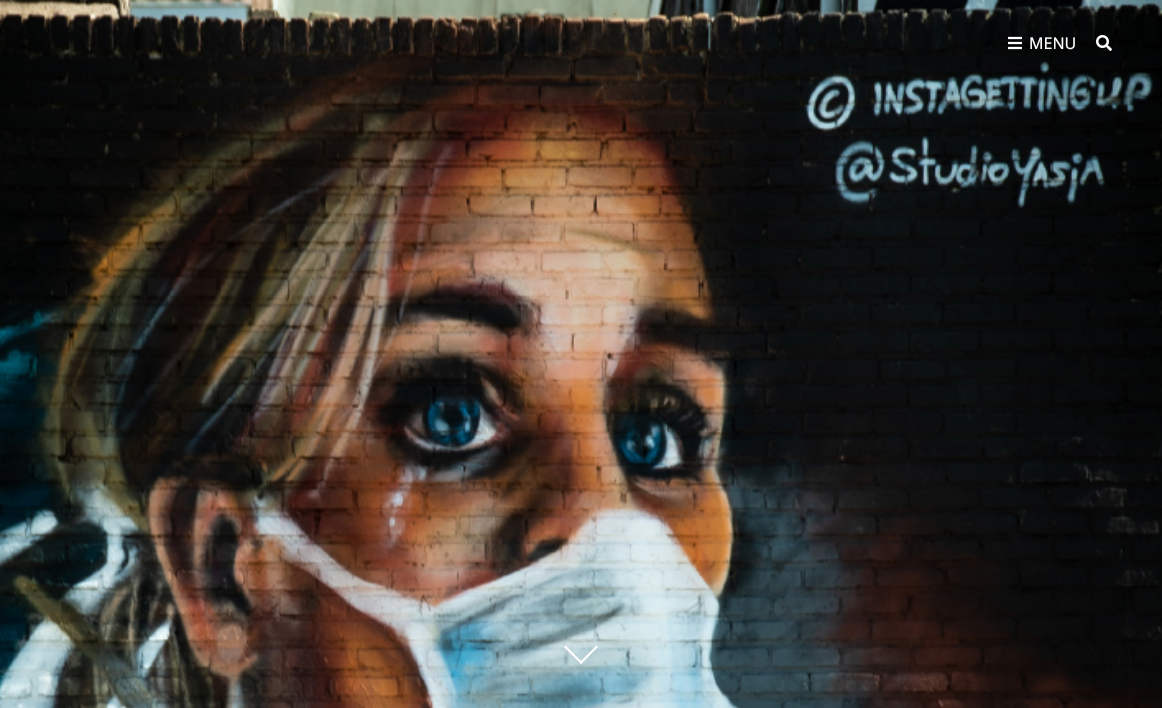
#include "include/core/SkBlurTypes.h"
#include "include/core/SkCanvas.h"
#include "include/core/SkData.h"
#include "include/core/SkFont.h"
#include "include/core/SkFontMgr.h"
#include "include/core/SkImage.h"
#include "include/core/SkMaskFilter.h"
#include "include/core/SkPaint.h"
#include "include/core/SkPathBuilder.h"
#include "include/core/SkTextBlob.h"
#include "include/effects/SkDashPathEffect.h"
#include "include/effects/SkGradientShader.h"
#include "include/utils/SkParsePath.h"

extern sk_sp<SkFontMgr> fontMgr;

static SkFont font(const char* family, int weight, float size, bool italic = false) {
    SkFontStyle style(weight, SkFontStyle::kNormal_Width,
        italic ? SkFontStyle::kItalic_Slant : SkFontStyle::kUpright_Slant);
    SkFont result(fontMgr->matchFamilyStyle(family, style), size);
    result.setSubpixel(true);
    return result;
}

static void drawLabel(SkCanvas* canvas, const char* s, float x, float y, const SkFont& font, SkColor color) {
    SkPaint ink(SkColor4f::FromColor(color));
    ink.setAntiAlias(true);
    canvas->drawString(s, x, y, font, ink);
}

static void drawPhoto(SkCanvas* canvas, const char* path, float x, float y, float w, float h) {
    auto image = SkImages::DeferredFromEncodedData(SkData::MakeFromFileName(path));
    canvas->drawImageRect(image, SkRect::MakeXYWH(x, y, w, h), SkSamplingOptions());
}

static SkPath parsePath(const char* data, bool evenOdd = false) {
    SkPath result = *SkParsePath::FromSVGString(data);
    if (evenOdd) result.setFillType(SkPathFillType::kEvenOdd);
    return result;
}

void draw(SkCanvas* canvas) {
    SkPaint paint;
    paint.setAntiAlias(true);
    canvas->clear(0xFFFFFFFF);
    drawPhoto(canvas, "assets/img1.png", 0, 0, 1162, 708);
    paint.setColor(0xFFFFFFFF);
    canvas->drawPath(parsePath("M579.5 662.5L596.5 645.5L598 647L581 664Z"), paint);
    canvas->drawPath(parsePath("M564 647L565.5 645.5L582.5 662.5L581 664Z"), paint);
    drawPhoto(canvas, "assets/img2.png", 1008, 36, 14, 14);
    SkFont font1 = font("Noto Sans", 400, 16);
    drawLabel(canvas, "MENU", 1029, 49, font1, 0xFFFFFFFF);
    drawPhoto(canvas, "assets/img3.png", 1096, 35, 16, 16);
}
